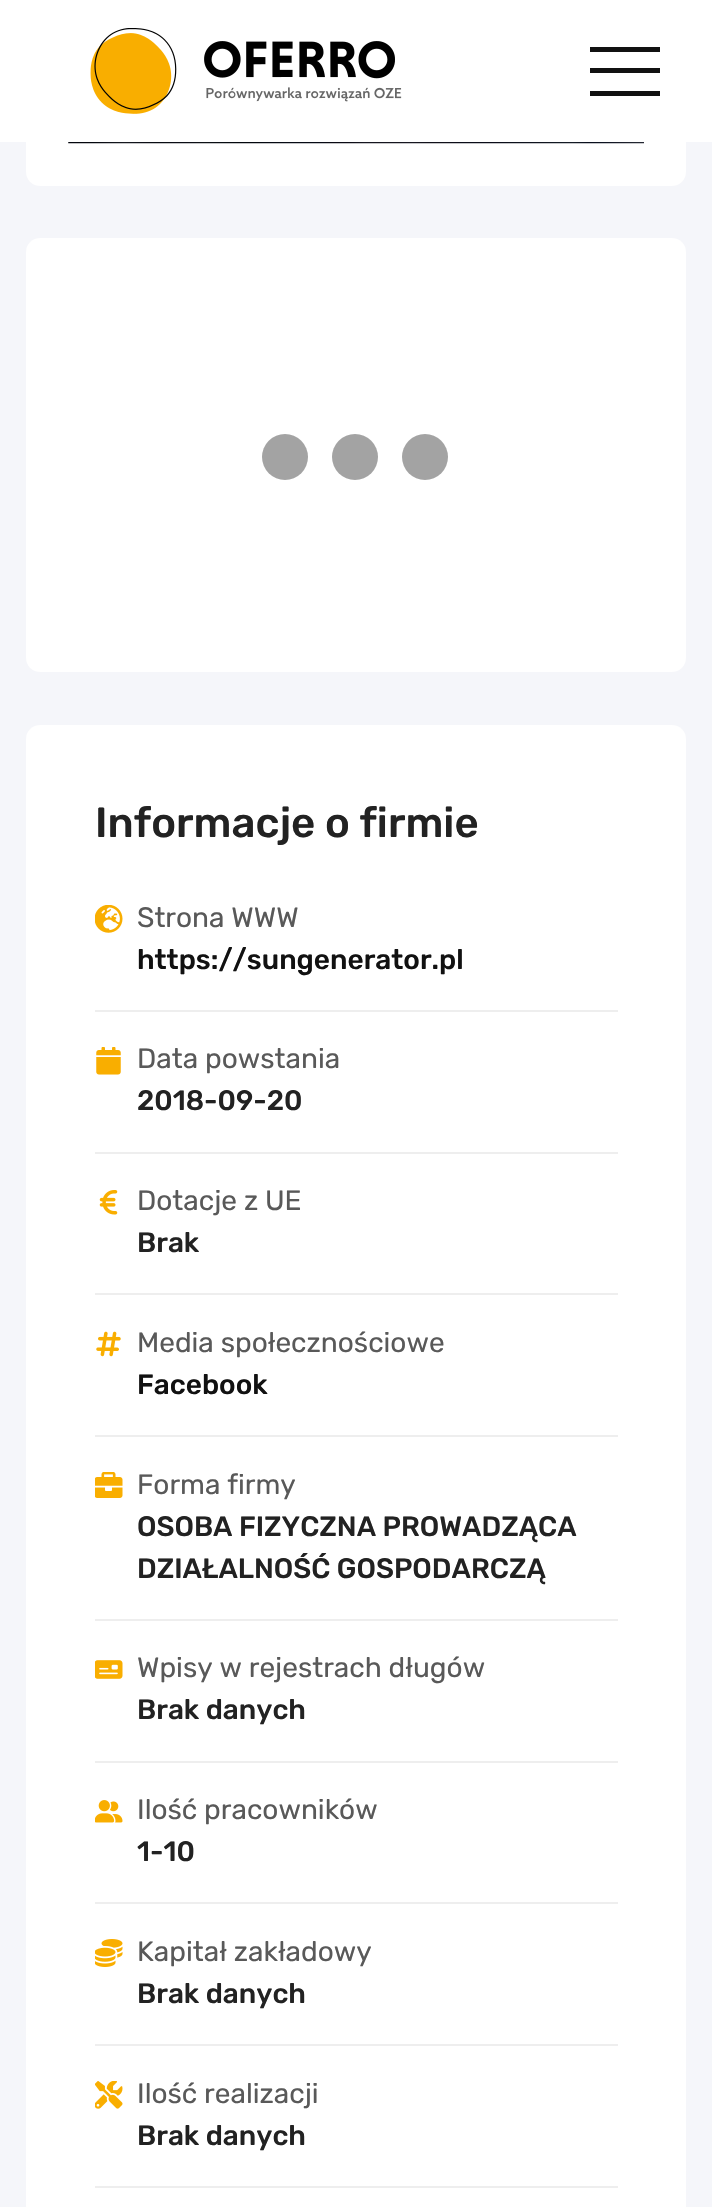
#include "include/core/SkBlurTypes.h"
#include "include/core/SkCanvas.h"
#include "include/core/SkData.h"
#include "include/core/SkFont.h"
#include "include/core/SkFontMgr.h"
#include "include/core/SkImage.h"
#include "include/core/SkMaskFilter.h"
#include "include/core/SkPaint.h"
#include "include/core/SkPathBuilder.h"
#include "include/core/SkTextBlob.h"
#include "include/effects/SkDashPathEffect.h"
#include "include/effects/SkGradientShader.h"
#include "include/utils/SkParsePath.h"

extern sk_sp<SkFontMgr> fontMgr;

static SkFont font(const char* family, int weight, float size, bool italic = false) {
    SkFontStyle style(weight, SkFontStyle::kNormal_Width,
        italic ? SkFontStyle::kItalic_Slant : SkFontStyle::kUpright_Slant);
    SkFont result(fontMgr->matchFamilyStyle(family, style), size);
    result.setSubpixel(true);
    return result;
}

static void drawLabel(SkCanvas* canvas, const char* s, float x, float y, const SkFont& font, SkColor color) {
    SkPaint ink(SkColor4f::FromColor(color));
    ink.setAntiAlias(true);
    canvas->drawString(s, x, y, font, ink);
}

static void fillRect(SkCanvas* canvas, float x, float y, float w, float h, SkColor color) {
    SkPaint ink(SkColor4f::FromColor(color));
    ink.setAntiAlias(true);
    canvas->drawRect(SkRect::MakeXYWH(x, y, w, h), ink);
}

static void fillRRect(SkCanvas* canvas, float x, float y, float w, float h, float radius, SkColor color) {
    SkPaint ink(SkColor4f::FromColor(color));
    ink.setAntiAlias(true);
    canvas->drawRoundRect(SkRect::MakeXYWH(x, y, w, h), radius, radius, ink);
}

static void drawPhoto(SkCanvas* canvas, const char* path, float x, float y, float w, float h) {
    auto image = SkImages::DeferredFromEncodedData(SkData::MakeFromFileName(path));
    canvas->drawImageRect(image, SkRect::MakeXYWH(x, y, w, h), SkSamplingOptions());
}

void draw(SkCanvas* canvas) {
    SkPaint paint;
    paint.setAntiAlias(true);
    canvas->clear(0xFFF5F6FA);
    fillRRect(canvas, 26, -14, 660, 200, 14, 0xFFFFFFFF);
    fillRect(canvas, 0, 0, 712, 142, 0xFFFFFFFF);
    drawPhoto(canvas, "assets/img1.png", 90, 28, 312, 86);
    fillRect(canvas, 590, 47, 70, 5, 0xFF111111);
    fillRect(canvas, 590, 68, 70, 5, 0xFF111111);
    fillRect(canvas, 590, 91, 70, 5, 0xFF111111);
    drawPhoto(canvas, "assets/img2.png", 68, 142, 576, 2);
    fillRRect(canvas, 26, 238, 660, 434, 14, 0xFFFFFFFF);
    paint.setColor(0xFFA3A3A3);
    canvas->drawCircle(285, 457, 23, paint);
    canvas->drawCircle(355, 457, 23, paint);
    canvas->drawCircle(425, 457, 23, paint);
    fillRRect(canvas, 26, 725, 660, 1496, 14, 0xFFFFFFFF);
    SkFont font1 = font("Rubik", 500, 42);
    drawLabel(canvas, "Informacje o firmie", 95, 837, font1, 0xFF222222);
    fillRect(canvas, 95, 1010, 523, 2, 0xFFEEEEEE);
    drawPhoto(canvas, "assets/img3.png", 95, 905, 28, 28);
    SkFont font2 = font("Rubik", 400, 28);
    drawLabel(canvas, "Strona WWW", 137, 927, font2, 0xFF595959);
    SkFont font3 = font("Rubik", 500, 28);
    drawLabel(canvas, "https://sungenerator.pl", 137, 969, font3, 0xFF111111);
    fillRect(canvas, 95, 1152, 523, 2, 0xFFEEEEEE);
    drawPhoto(canvas, "assets/img4.png", 96, 1047, 25, 28);
    drawLabel(canvas, "Data powstania", 137, 1068, font2, 0xFF595959);
    drawLabel(canvas, "2018-09-20", 137, 1110, font3, 0xFF222222);
    fillRect(canvas, 95, 1293, 523, 2, 0xFFEEEEEE);
    drawPhoto(canvas, "assets/img5.png", 99, 1190, 19, 25);
    drawLabel(canvas, "Dotacje z UE", 137, 1210, font2, 0xFF595959);
    drawLabel(canvas, "Brak", 137, 1252, font3, 0xFF222222);
    fillRect(canvas, 95, 1435, 523, 2, 0xFFEEEEEE);
    drawPhoto(canvas, "assets/img6.png", 96, 1331, 25, 26);
    drawLabel(canvas, "Media społecznościowe", 137, 1352, font2, 0xFF595959);
    drawLabel(canvas, "Facebook", 137, 1394, font3, 0xFF111111);
    fillRect(canvas, 95, 1619, 523, 2, 0xFFEEEEEE);
    drawPhoto(canvas, "assets/img7.png", 95, 1472, 28, 26);
    drawLabel(canvas, "Forma firmy", 137, 1494, font2, 0xFF595959);
    drawLabel(canvas, "OSOBA FIZYCZNA PROWADZĄCA", 137, 1536, font3, 0xFF222222);
    drawLabel(canvas, "DZIAŁALNOŚĆ GOSPODARCZĄ", 137, 1578, font3, 0xFF222222);
    fillRect(canvas, 95, 1761, 523, 2, 0xFFEEEEEE);
    drawPhoto(canvas, "assets/img8.png", 95, 1660, 28, 19);
    drawLabel(canvas, "Wpisy w rejestrach długów", 137, 1677, font2, 0xFF595959);
    drawLabel(canvas, "Brak danych", 137, 1719, font3, 0xFF222222);
    fillRect(canvas, 95, 1902, 523, 2, 0xFFEEEEEE);
    drawPhoto(canvas, "assets/img9.png", 95, 1800, 28, 23);
    drawLabel(canvas, "Ilość pracowników", 137, 1819, font2, 0xFF595959);
    drawLabel(canvas, "1-10", 137, 1861, font3, 0xFF222222);
    fillRect(canvas, 95, 2044, 523, 2, 0xFFEEEEEE);
    drawPhoto(canvas, "assets/img10.png", 95, 1939, 28, 28);
    drawLabel(canvas, "Kapitał zakładowy", 137, 1961, font2, 0xFF595959);
    drawLabel(canvas, "Brak danych", 137, 2003, font3, 0xFF222222);
    fillRect(canvas, 95, 2186, 523, 2, 0xFFEEEEEE);
    drawPhoto(canvas, "assets/img11.png", 95, 2081, 28, 28);
    drawLabel(canvas, "Ilość realizacji", 137, 2103, font2, 0xFF595959);
    drawLabel(canvas, "Brak danych", 137, 2145, font3, 0xFF222222);
}
